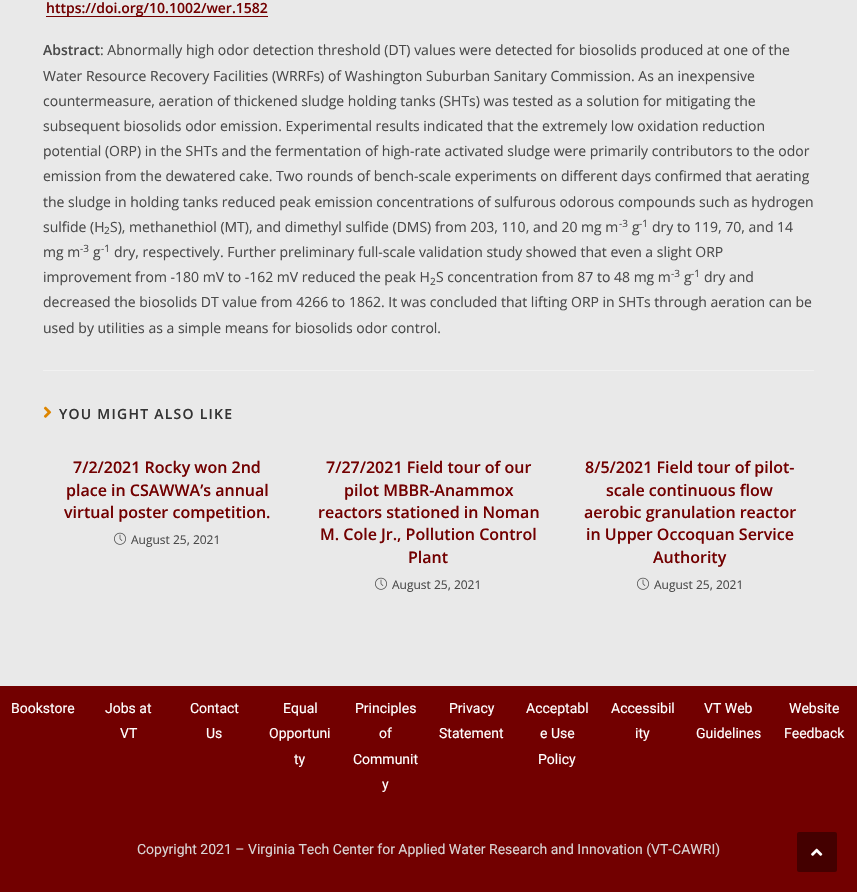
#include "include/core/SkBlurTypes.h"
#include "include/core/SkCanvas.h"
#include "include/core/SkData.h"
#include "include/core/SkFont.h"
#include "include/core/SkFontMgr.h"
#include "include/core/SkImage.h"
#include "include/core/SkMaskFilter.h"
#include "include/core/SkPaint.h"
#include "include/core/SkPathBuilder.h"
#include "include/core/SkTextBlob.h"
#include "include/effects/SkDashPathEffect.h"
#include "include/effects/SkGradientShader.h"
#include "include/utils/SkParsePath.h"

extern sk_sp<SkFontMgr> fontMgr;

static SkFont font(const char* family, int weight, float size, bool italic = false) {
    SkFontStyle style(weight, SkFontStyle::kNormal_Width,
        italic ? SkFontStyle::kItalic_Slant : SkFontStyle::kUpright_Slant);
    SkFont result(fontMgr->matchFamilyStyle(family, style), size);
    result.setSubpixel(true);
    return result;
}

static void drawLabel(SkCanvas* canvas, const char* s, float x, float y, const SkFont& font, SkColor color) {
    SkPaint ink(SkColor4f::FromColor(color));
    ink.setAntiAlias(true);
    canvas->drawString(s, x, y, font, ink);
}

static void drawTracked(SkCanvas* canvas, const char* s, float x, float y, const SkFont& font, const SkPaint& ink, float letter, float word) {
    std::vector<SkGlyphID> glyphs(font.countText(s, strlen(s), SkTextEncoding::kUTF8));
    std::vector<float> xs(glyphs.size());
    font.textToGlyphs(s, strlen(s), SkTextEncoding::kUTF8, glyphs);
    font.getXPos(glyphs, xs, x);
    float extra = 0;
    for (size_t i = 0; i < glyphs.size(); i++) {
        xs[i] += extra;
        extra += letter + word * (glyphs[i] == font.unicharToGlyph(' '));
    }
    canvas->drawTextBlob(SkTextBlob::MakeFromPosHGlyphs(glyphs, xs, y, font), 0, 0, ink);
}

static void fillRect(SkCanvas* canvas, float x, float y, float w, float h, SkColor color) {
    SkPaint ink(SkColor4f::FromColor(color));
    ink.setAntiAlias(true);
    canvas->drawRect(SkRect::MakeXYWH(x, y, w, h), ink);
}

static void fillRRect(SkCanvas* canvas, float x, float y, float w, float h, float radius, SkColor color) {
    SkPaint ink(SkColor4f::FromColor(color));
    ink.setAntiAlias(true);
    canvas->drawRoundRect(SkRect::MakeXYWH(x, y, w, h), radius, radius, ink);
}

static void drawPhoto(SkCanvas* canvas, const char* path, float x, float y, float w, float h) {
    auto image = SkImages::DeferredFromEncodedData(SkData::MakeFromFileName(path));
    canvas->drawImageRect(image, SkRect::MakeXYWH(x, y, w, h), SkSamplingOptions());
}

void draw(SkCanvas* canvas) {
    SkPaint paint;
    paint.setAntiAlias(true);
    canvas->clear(0xFFE9E9E9);
    fillRect(canvas, 46, 16, 222, 1, 0xFF720000);
    SkFont font1 = font("Open Sans", 600, 14);
    drawLabel(canvas, "https://doi.org/10.1002/wer.1582", 46, 13, font1, 0xFF720000);
    drawLabel(canvas, "Abstract", 43, 55, font1, 0xFF4A4A4A);
    SkFont font2 = font("Open Sans", 400, 14);
    drawLabel(canvas, ": Abnormally high odor detection threshold (DT) values were detected for biosolids produced at one of the", 100, 55, font2, 0xFF4A4A4A);
    drawLabel(canvas, "Water Resource Recovery Facilities (WRRFs) of Washington Suburban Sanitary Commission. As an inexpensive", 43, 81, font2, 0xFF4A4A4A);
    drawLabel(canvas, "countermeasure, aeration of thickened sludge holding tanks (SHTs) was tested as a solution for mitigating the", 43, 106, font2, 0xFF4A4A4A);
    drawLabel(canvas, "subsequent biosolids odor emission. Experimental results indicated that the extremely low oxidation reduction", 43, 131, font2, 0xFF4A4A4A);
    drawLabel(canvas, "potential (ORP) in the SHTs and the fermentation of high-rate activated sludge were primarily contributors to the odor", 43, 156, font2, 0xFF4A4A4A);
    drawLabel(canvas, "emission from the dewatered cake. Two rounds of bench-scale experiments on different days confirmed that aerating", 43, 181, font2, 0xFF4A4A4A);
    drawLabel(canvas, "the sludge in holding tanks reduced peak emission concentrations of sulfurous odorous compounds such as hydrogen", 43, 207, font2, 0xFF4A4A4A);
    drawLabel(canvas, "sulfide (H", 43, 232, font2, 0xFF4A4A4A);
    SkFont font3 = font("Open Sans", 400, 10);
    drawLabel(canvas, "2", 104, 234, font3, 0xFF4A4A4A);
    drawLabel(canvas, "S), methanethiol (MT), and dimethyl sulfide (DMS) from 203, 110, and 20 mg m", 110, 232, font2, 0xFF4A4A4A);
    drawLabel(canvas, "-3", 619, 227, font3, 0xFF4A4A4A);
    drawLabel(canvas, "g", 632, 232, font2, 0xFF4A4A4A);
    drawLabel(canvas, "-1", 639, 227, font3, 0xFF4A4A4A);
    drawLabel(canvas, "dry to 119, 70, and 14", 652, 232, font2, 0xFF4A4A4A);
    drawLabel(canvas, "mg m", 43, 257, font2, 0xFF4A4A4A);
    drawLabel(canvas, "-3", 80, 252, font3, 0xFF4A4A4A);
    drawLabel(canvas, "g", 93, 257, font2, 0xFF4A4A4A);
    drawLabel(canvas, "-1", 101, 252, font3, 0xFF4A4A4A);
    drawLabel(canvas, "dry, respectively. Further preliminary full-scale validation study showed that even a slight ORP", 114, 257, font2, 0xFF4A4A4A);
    drawLabel(canvas, "improvement from -180 mV to -162 mV reduced the peak H", 43, 282, font2, 0xFF4A4A4A);
    drawLabel(canvas, "2", 430, 285, font3, 0xFF4A4A4A);
    drawLabel(canvas, "S concentration from 87 to 48 mg m", 436, 282, font2, 0xFF4A4A4A);
    drawLabel(canvas, "-3", 671, 277, font3, 0xFF4A4A4A);
    drawLabel(canvas, "g", 684, 282, font2, 0xFF4A4A4A);
    drawLabel(canvas, "-1", 691, 277, font3, 0xFF4A4A4A);
    drawLabel(canvas, "dry and", 704, 282, font2, 0xFF4A4A4A);
    drawLabel(canvas, "decreased the biosolids DT value from 4266 to 1862. It was concluded that lifting ORP in SHTs through aeration can be", 43, 307, font2, 0xFF4A4A4A);
    drawLabel(canvas, "used by utilities as a simple means for biosolids odor control.", 43, 333, font2, 0xFF4A4A4A);
    fillRect(canvas, 43, 370, 771, 1, 0xFFF1F1F1);
    drawPhoto(canvas, "assets/img1.png", 43, 406, 9, 12);
    paint.setColor(0xFF333333);
    drawTracked(canvas, "YOU MIGHT ALSO LIKE", 59, 419, font1, paint, 1.25f, 0);
    SkFont font4 = font("Open Sans", 600, 16);
    drawLabel(canvas, "7/2/2021 Rocky won 2nd", 73, 473, font4, 0xFF720000);
    drawLabel(canvas, "place in CSAWWA’s annual", 66, 496, font4, 0xFF720000);
    drawLabel(canvas, "virtual poster competition.", 64, 518, font4, 0xFF720000);
    drawPhoto(canvas, "assets/img2.png", 114, 532, 12, 13);
    SkFont font5 = font("Open Sans", 400, 12);
    drawLabel(canvas, "August 25, 2021", 131, 544, font5, 0xFF4A4A4A);
    drawLabel(canvas, "7/27/2021 Field tour of our", 326, 473, font4, 0xFF720000);
    drawLabel(canvas, "pilot MBBR-Anammox", 344, 496, font4, 0xFF720000);
    drawLabel(canvas, "reactors stationed in Noman", 318, 518, font4, 0xFF720000);
    drawLabel(canvas, "M. Cole Jr., Pollution Control", 320, 540, font4, 0xFF720000);
    drawLabel(canvas, "Plant", 408, 563, font4, 0xFF720000);
    drawPhoto(canvas, "assets/img2.png", 375, 577, 12, 13);
    drawLabel(canvas, "August 25, 2021", 392, 589, font5, 0xFF4A4A4A);
    drawLabel(canvas, "8/5/2021 Field tour of pilot-", 585, 473, font4, 0xFF720000);
    drawLabel(canvas, "scale continuous flow", 606, 496, font4, 0xFF720000);
    drawLabel(canvas, "aerobic granulation reactor", 584, 518, font4, 0xFF720000);
    drawLabel(canvas, "in Upper Occoquan Service", 586, 540, font4, 0xFF720000);
    drawLabel(canvas, "Authority", 653, 563, font4, 0xFF720000);
    drawPhoto(canvas, "assets/img2.png", 637, 577, 12, 13);
    drawLabel(canvas, "August 25, 2021", 654, 589, font5, 0xFF4A4A4A);
    fillRect(canvas, 0, 686, 857, 206, 0xFF720000);
    SkFont font6 = font("Roboto", 400, 14);
    drawLabel(canvas, "Bookstore", 11, 713, font6, 0xFFFFFFFF);
    drawLabel(canvas, "Jobs at", 105, 713, font6, 0xFFFFFFFF);
    drawLabel(canvas, "VT", 120, 738, font6, 0xFFFFFFFF);
    drawLabel(canvas, "Contact", 190, 713, font6, 0xFFFFFFFF);
    drawLabel(canvas, "Us", 206, 738, font6, 0xFFFFFFFF);
    drawLabel(canvas, "Equal", 283, 713, font6, 0xFFFFFFFF);
    drawLabel(canvas, "Opportuni", 269, 738, font6, 0xFFFFFFFF);
    drawLabel(canvas, "ty", 294, 764, font6, 0xFFFFFFFF);
    drawLabel(canvas, "Principles", 355, 713, font6, 0xFFFFFFFF);
    drawLabel(canvas, "of", 379, 738, font6, 0xFFFFFFFF);
    drawLabel(canvas, "Communit", 353, 764, font6, 0xFFFFFFFF);
    drawLabel(canvas, "y", 382, 789, font6, 0xFFFFFFFF);
    drawLabel(canvas, "Privacy", 449, 713, font6, 0xFFFFFFFF);
    drawLabel(canvas, "Statement", 439, 738, font6, 0xFFFFFFFF);
    drawLabel(canvas, "Acceptabl", 526, 713, font6, 0xFFFFFFFF);
    drawLabel(canvas, "e Use", 540, 738, font6, 0xFFFFFFFF);
    drawLabel(canvas, "Policy", 538, 764, font6, 0xFFFFFFFF);
    drawLabel(canvas, "Accessibil", 611, 713, font6, 0xFFFFFFFF);
    drawLabel(canvas, "ity", 635, 738, font6, 0xFFFFFFFF);
    drawLabel(canvas, "VT Web", 704, 713, font6, 0xFFFFFFFF);
    drawLabel(canvas, "Guidelines", 696, 738, font6, 0xFFFFFFFF);
    drawLabel(canvas, "Website", 789, 713, font6, 0xFFFFFFFF);
    drawLabel(canvas, "Feedback", 784, 738, font6, 0xFFFFFFFF);
    drawLabel(canvas, "Copyright 2021 – Virginia Tech Center for Applied Water Research and Innovation (VT-CAWRI)", 137, 854, font6, 0xFFD9D4D4);
    fillRRect(canvas, 797, 832, 40, 40, 2, 0xFF440000);
    drawPhoto(canvas, "assets/img3.png", 811, 848, 12, 8);
}
